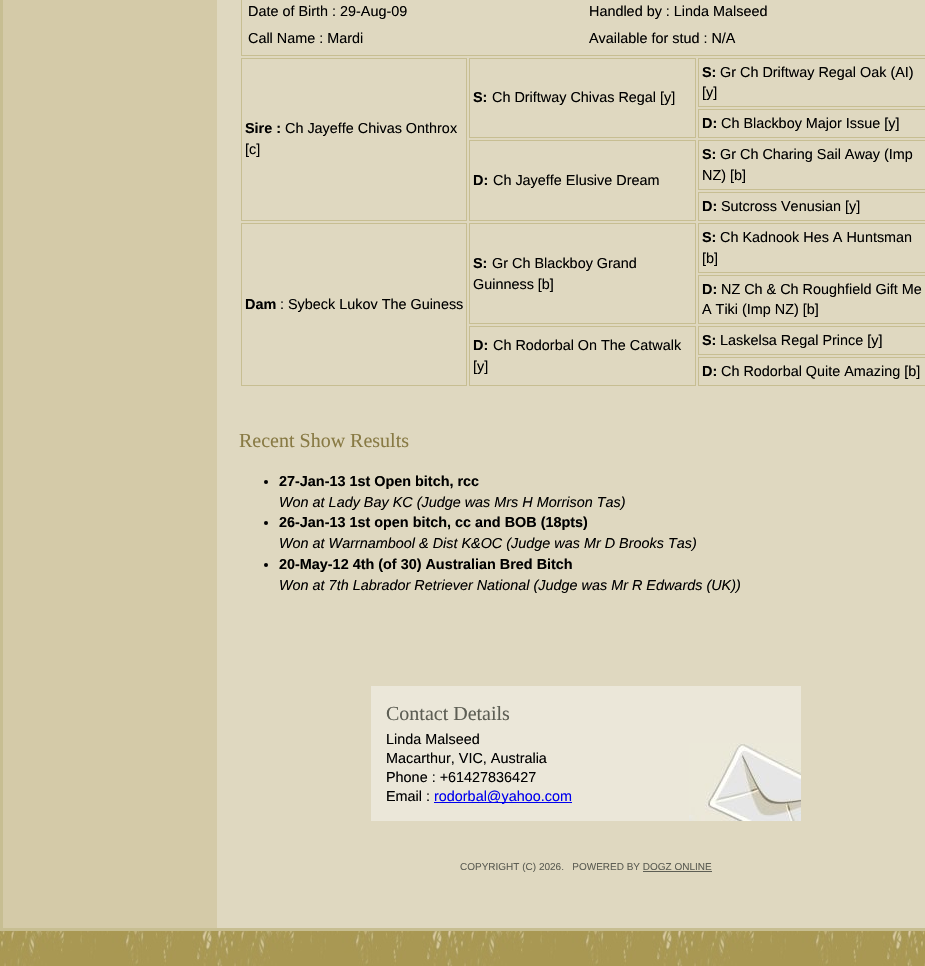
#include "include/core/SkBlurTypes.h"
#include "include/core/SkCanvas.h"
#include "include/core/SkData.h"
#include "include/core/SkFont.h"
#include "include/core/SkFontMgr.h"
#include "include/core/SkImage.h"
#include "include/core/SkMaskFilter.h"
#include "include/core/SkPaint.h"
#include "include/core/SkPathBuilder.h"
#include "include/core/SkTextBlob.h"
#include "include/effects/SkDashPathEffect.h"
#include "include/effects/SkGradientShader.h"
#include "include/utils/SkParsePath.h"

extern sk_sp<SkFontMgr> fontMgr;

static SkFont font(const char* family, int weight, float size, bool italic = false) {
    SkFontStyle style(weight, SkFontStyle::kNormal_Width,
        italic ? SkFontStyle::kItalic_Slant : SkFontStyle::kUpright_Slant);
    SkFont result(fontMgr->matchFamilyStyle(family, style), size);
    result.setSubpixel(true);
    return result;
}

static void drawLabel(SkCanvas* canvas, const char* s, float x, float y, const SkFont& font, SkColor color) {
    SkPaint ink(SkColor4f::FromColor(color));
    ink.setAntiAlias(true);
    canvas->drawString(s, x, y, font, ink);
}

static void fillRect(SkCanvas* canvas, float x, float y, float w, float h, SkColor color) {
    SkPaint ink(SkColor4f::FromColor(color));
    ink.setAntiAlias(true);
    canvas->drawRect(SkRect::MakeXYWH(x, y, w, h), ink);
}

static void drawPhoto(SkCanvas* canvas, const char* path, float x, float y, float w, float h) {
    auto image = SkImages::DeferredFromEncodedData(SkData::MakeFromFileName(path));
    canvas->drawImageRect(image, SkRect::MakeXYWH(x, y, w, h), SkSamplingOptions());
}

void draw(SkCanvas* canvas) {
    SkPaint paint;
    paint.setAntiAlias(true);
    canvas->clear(0xFFFFFFFF);
    drawPhoto(canvas, "assets/img1.png", 0, 931, 925, 35);
    fillRect(canvas, 217, 0, 708, 928, 0xFFDFD8C0);
    fillRect(canvas, 0, 0, 3, 931, 0xFFC7BE92);
    fillRect(canvas, 0, 928, 925, 3, 0xFFC7BE92);
    fillRect(canvas, 3, 0, 214, 928, 0xFFD4CAA8);
    paint.setStroke(true);
    paint.setStrokeWidth(1);
    paint.setColor(0xFFC7BE92);
    canvas->drawRect(SkRect::MakeXYWH(241.5f, -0.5f, 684, 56), paint);
    SkFont font1 = font("Liberation Sans", 400, 14.4f);
    drawLabel(canvas, "Date of Birth : 29-Aug-09", 248, 16, font1, 0xFF000000);
    drawLabel(canvas, "Handled by : Linda Malseed", 589, 16, font1, 0xFF000000);
    drawLabel(canvas, "Call Name : Mardi", 248, 43, font1, 0xFF000000);
    drawLabel(canvas, "Available for stud : N/A", 589, 43, font1, 0xFF000000);
    canvas->drawRect(SkRect::MakeXYWH(469.5f, 58.5f, 226, 79), paint);
    SkFont font2 = font("Liberation Sans", 700, 14.4f);
    drawLabel(canvas, "S:", 473, 102, font2, 0xFF000000);
    drawLabel(canvas, "Ch Driftway Chivas Regal [y]", 492, 102, font1, 0xFF000000);
    canvas->drawRect(SkRect::MakeXYWH(698.5f, 58.5f, 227, 48), paint);
    drawLabel(canvas, "S:", 702, 77, font2, 0xFF000000);
    drawLabel(canvas, "Gr Ch Driftway Regal Oak (AI)", 720, 77, font1, 0xFF000000);
    drawLabel(canvas, "[y]", 702, 97, font1, 0xFF000000);
    canvas->drawRect(SkRect::MakeXYWH(241.5f, 58.5f, 225, 162), paint);
    drawLabel(canvas, "Sire :", 245, 133, font2, 0xFF000000);
    drawLabel(canvas, "Ch Jayeffe Chivas Onthrox", 285, 133, font1, 0xFF000000);
    drawLabel(canvas, "[c]", 245, 154, font1, 0xFF000000);
    canvas->drawRect(SkRect::MakeXYWH(698.5f, 109.5f, 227, 28), paint);
    drawLabel(canvas, "D:", 702, 128, font2, 0xFF000000);
    drawLabel(canvas, "Ch Blackboy Major Issue [y]", 721, 128, font1, 0xFF000000);
    canvas->drawRect(SkRect::MakeXYWH(469.5f, 140.5f, 226, 80), paint);
    drawLabel(canvas, "D:", 473, 185, font2, 0xFF000000);
    drawLabel(canvas, "Ch Jayeffe Elusive Dream", 493, 185, font1, 0xFF000000);
    canvas->drawRect(SkRect::MakeXYWH(698.5f, 140.5f, 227, 49), paint);
    drawLabel(canvas, "S:", 702, 159, font2, 0xFF000000);
    drawLabel(canvas, "Gr Ch Charing Sail Away (Imp", 720, 159, font1, 0xFF000000);
    drawLabel(canvas, "NZ) [b]", 702, 180, font1, 0xFF000000);
    canvas->drawRect(SkRect::MakeXYWH(698.5f, 192.5f, 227, 28), paint);
    drawLabel(canvas, "D:", 702, 211, font2, 0xFF000000);
    drawLabel(canvas, "Sutcross Venusian [y]", 721, 211, font1, 0xFF000000);
    canvas->drawRect(SkRect::MakeXYWH(698.5f, 223.5f, 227, 49), paint);
    drawLabel(canvas, "S:", 702, 242, font2, 0xFF000000);
    drawLabel(canvas, "Ch Kadnook Hes A Huntsman", 720, 242, font1, 0xFF000000);
    drawLabel(canvas, "[b]", 702, 263, font1, 0xFF000000);
    canvas->drawRect(SkRect::MakeXYWH(469.5f, 223.5f, 226, 100), paint);
    drawLabel(canvas, "S:", 473, 268, font2, 0xFF000000);
    drawLabel(canvas, "Gr Ch Blackboy Grand", 492, 268, font1, 0xFF000000);
    drawLabel(canvas, "Guinness [b]", 473, 289, font1, 0xFF000000);
    canvas->drawRect(SkRect::MakeXYWH(241.5f, 223.5f, 225, 162), paint);
    drawLabel(canvas, "Dam", 245, 309, font2, 0xFF000000);
    drawLabel(canvas, ": Sybeck Lukov The Guiness", 280, 309, font1, 0xFF000000);
    canvas->drawRect(SkRect::MakeXYWH(698.5f, 275.5f, 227, 48), paint);
    drawLabel(canvas, "D:", 702, 294, font2, 0xFF000000);
    drawLabel(canvas, "NZ Ch & Ch Roughfield Gift Me", 721, 294, font1, 0xFF000000);
    drawLabel(canvas, "A Tiki (Imp NZ) [b]", 702, 314, font1, 0xFF000000);
    canvas->drawRect(SkRect::MakeXYWH(469.5f, 326.5f, 226, 59), paint);
    drawLabel(canvas, "D:", 473, 350, font2, 0xFF000000);
    drawLabel(canvas, "Ch Rodorbal On The Catwalk", 493, 350, font1, 0xFF000000);
    drawLabel(canvas, "[y]", 473, 371, font1, 0xFF000000);
    canvas->drawRect(SkRect::MakeXYWH(698.5f, 326.5f, 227, 28), paint);
    drawLabel(canvas, "S:", 702, 345, font2, 0xFF000000);
    drawLabel(canvas, "Laskelsa Regal Prince [y]", 720, 345, font1, 0xFF000000);
    canvas->drawRect(SkRect::MakeXYWH(698.5f, 357.5f, 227, 28), paint);
    drawLabel(canvas, "D:", 702, 376, font2, 0xFF000000);
    drawLabel(canvas, "Ch Rodorbal Quite Amazing [b]", 721, 376, font1, 0xFF000000);
    SkFont font3 = font("Liberation Serif", 400, 20);
    drawLabel(canvas, "Recent Show Results", 239, 447, font3, 0xFF887A44);
    paint.setStroke(false);
    paint.setColor(0xFF000000);
    canvas->drawCircle(266, 482, 2, paint);
    drawLabel(canvas, "27-Jan-13 1st Open bitch, rcc", 279, 486, font2, 0xFF000000);
    SkFont font4 = font("Liberation Sans", 400, 14.4f, true);
    drawLabel(canvas, "Won at Lady Bay KC (Judge was Mrs H Morrison Tas)", 279, 507, font4, 0xFF000000);
    canvas->drawCircle(266, 523, 2, paint);
    drawLabel(canvas, "26-Jan-13 1st open bitch, cc and BOB (18pts)", 279, 527, font2, 0xFF000000);
    drawLabel(canvas, "Won at Warrnambool & Dist K&OC (Judge was Mr D Brooks Tas)", 279, 548, font4, 0xFF000000);
    canvas->drawCircle(266, 565, 2, paint);
    drawLabel(canvas, "20-May-12 4th (of 30) Australian Bred Bitch", 279, 569, font2, 0xFF000000);
    drawLabel(canvas, "Won at 7th Labrador Retriever National (Judge was Mr R Edwards (UK))", 279, 590, font4, 0xFF000000);
    fillRect(canvas, 371, 686, 430, 135, 0xFFEBE7D9);
    drawPhoto(canvas, "assets/img2.png", 689, 743, 112, 78);
    drawLabel(canvas, "Contact Details", 386, 720, font3, 0xFF5D5E54);
    drawLabel(canvas, "Linda Malseed", 386, 744, font1, 0xFF000000);
    drawLabel(canvas, "Macarthur, VIC, Australia", 386, 763, font1, 0xFF000000);
    drawLabel(canvas, "Phone : +61427836427", 386, 782, font1, 0xFF000000);
    drawLabel(canvas, "Email :", 386, 801, font1, 0xFF000000);
    fillRect(canvas, 434, 802, 138, 1, 0xFF0000EE);
    drawLabel(canvas, "rodorbal@yahoo.com", 434, 801, font1, 0xFF0000EE);
    SkFont font5 = font("Liberation Sans", 400, 10);
    drawLabel(canvas, "COPYRIGHT (C) 2026.   POWERED BY DOGZ ONLINE", 460, 870, font5, 0xFF5D5E54);
    fillRect(canvas, 643, 871, 69, 1, 0xFF5D5E54);
}
